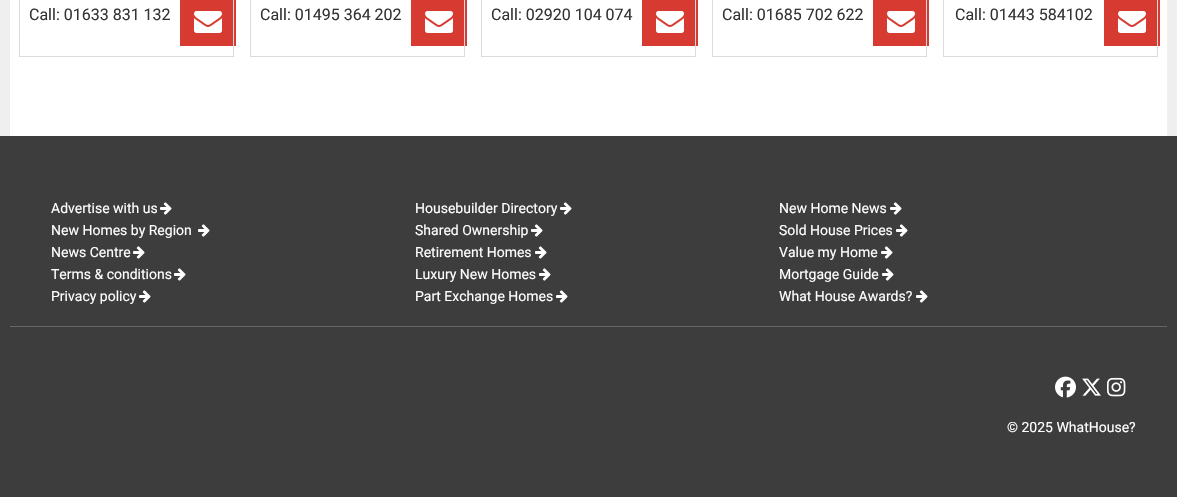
#include "include/core/SkBlurTypes.h"
#include "include/core/SkCanvas.h"
#include "include/core/SkData.h"
#include "include/core/SkFont.h"
#include "include/core/SkFontMgr.h"
#include "include/core/SkImage.h"
#include "include/core/SkMaskFilter.h"
#include "include/core/SkPaint.h"
#include "include/core/SkPathBuilder.h"
#include "include/core/SkTextBlob.h"
#include "include/effects/SkDashPathEffect.h"
#include "include/effects/SkGradientShader.h"
#include "include/utils/SkParsePath.h"

extern sk_sp<SkFontMgr> fontMgr;

static SkFont font(const char* family, int weight, float size, bool italic = false) {
    SkFontStyle style(weight, SkFontStyle::kNormal_Width,
        italic ? SkFontStyle::kItalic_Slant : SkFontStyle::kUpright_Slant);
    SkFont result(fontMgr->matchFamilyStyle(family, style), size);
    result.setSubpixel(true);
    return result;
}

static void drawLabel(SkCanvas* canvas, const char* s, float x, float y, const SkFont& font, SkColor color) {
    SkPaint ink(SkColor4f::FromColor(color));
    ink.setAntiAlias(true);
    canvas->drawString(s, x, y, font, ink);
}

static void fillRect(SkCanvas* canvas, float x, float y, float w, float h, SkColor color) {
    SkPaint ink(SkColor4f::FromColor(color));
    ink.setAntiAlias(true);
    canvas->drawRect(SkRect::MakeXYWH(x, y, w, h), ink);
}

static void drawPhoto(SkCanvas* canvas, const char* path, float x, float y, float w, float h) {
    auto image = SkImages::DeferredFromEncodedData(SkData::MakeFromFileName(path));
    canvas->drawImageRect(image, SkRect::MakeXYWH(x, y, w, h), SkSamplingOptions());
}

void draw(SkCanvas* canvas) {
    SkPaint paint;
    paint.setAntiAlias(true);
    canvas->clear(0xFFEFEFEF);
    fillRect(canvas, 10, 0, 1157, 136, 0xFFFFFFFF);
    fillRect(canvas, 180, 0, 56, 46, 0xFFD63A31);
    paint.setStroke(true);
    paint.setStrokeWidth(1);
    paint.setColor(0xFFDBDBDB);
    canvas->drawRect(SkRect::MakeXYWH(19.5f, -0.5f, 214, 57), paint);
    SkFont font1 = font("Roboto", 400, 16);
    drawLabel(canvas, "Call: 01633 831 132", 29, 20, font1, 0xFF333333);
    drawPhoto(canvas, "assets/img1.png", 194, 11, 28, 22);
    fillRect(canvas, 411, 0, 56, 46, 0xFFD63A31);
    canvas->drawRect(SkRect::MakeXYWH(250.5f, -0.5f, 214, 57), paint);
    drawLabel(canvas, "Call: 01495 364 202", 260, 20, font1, 0xFF333333);
    drawPhoto(canvas, "assets/img1.png", 425, 11, 28, 22);
    fillRect(canvas, 642, 0, 56, 46, 0xFFD63A31);
    canvas->drawRect(SkRect::MakeXYWH(481.5f, -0.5f, 214, 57), paint);
    drawLabel(canvas, "Call: 02920 104 074", 491, 20, font1, 0xFF333333);
    drawPhoto(canvas, "assets/img1.png", 656, 11, 28, 22);
    fillRect(canvas, 873, 0, 56, 46, 0xFFD63A31);
    canvas->drawRect(SkRect::MakeXYWH(712.5f, -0.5f, 214, 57), paint);
    drawLabel(canvas, "Call: 01685 702 622", 722, 20, font1, 0xFF333333);
    drawPhoto(canvas, "assets/img1.png", 887, 11, 28, 22);
    fillRect(canvas, 1104, 0, 56, 46, 0xFFD63A31);
    canvas->drawRect(SkRect::MakeXYWH(943.5f, -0.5f, 214, 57), paint);
    drawLabel(canvas, "Call: 01443 584102", 955, 20, font1, 0xFF333333);
    drawPhoto(canvas, "assets/img1.png", 1118, 11, 28, 22);
    fillRect(canvas, 0, 136, 1177, 361, 0xFF3D3D3D);
    SkFont font2 = font("Roboto", 400, 14);
    drawLabel(canvas, "Advertise with us", 51, 213, font2, 0xFFFFFFFF);
    drawPhoto(canvas, "assets/img2.png", 160, 202, 12, 13);
    drawLabel(canvas, "New Homes by Region", 51, 235, font2, 0xFFFFFFFF);
    drawPhoto(canvas, "assets/img2.png", 198, 224, 12, 13);
    drawLabel(canvas, "News Centre", 51, 257, font2, 0xFFFFFFFF);
    drawPhoto(canvas, "assets/img2.png", 133, 246, 12, 13);
    drawLabel(canvas, "Terms & conditions", 51, 279, font2, 0xFFFFFFFF);
    drawPhoto(canvas, "assets/img2.png", 174, 268, 12, 13);
    drawLabel(canvas, "Privacy policy", 51, 301, font2, 0xFFFFFFFF);
    drawPhoto(canvas, "assets/img2.png", 139, 290, 12, 13);
    drawLabel(canvas, "Housebuilder Directory", 415, 213, font2, 0xFFFFFFFF);
    drawPhoto(canvas, "assets/img2.png", 560, 202, 12, 13);
    drawLabel(canvas, "Shared Ownership", 415, 235, font2, 0xFFFFFFFF);
    drawPhoto(canvas, "assets/img2.png", 531, 224, 12, 13);
    drawLabel(canvas, "Retirement Homes", 415, 257, font2, 0xFFFFFFFF);
    drawPhoto(canvas, "assets/img2.png", 535, 246, 12, 13);
    drawLabel(canvas, "Luxury New Homes", 415, 279, font2, 0xFFFFFFFF);
    drawPhoto(canvas, "assets/img2.png", 539, 268, 12, 13);
    drawLabel(canvas, "Part Exchange Homes", 415, 301, font2, 0xFFFFFFFF);
    drawPhoto(canvas, "assets/img2.png", 556, 290, 12, 13);
    drawLabel(canvas, "New Home News", 779, 213, font2, 0xFFFFFFFF);
    drawPhoto(canvas, "assets/img2.png", 890, 202, 12, 13);
    drawLabel(canvas, "Sold House Prices", 779, 235, font2, 0xFFFFFFFF);
    drawPhoto(canvas, "assets/img2.png", 896, 224, 12, 13);
    drawLabel(canvas, "Value my Home", 779, 257, font2, 0xFFFFFFFF);
    drawPhoto(canvas, "assets/img2.png", 881, 246, 12, 13);
    drawLabel(canvas, "Mortgage Guide", 779, 279, font2, 0xFFFFFFFF);
    drawPhoto(canvas, "assets/img2.png", 882, 268, 12, 13);
    drawLabel(canvas, "What House Awards?", 779, 301, font2, 0xFFFFFFFF);
    drawPhoto(canvas, "assets/img2.png", 916, 290, 12, 13);
    fillRect(canvas, 10, 326, 1157, 1, 0xFF666666);
    drawPhoto(canvas, "assets/img3.png", 1055, 376, 21, 22);
    drawPhoto(canvas, "assets/img4.png", 1082, 378, 19, 18);
    drawPhoto(canvas, "assets/img5.png", 1107, 377, 19, 20);
    drawLabel(canvas, "© 2025 WhatHouse?", 1007, 432, font2, 0xFFFFFFFF);
}
